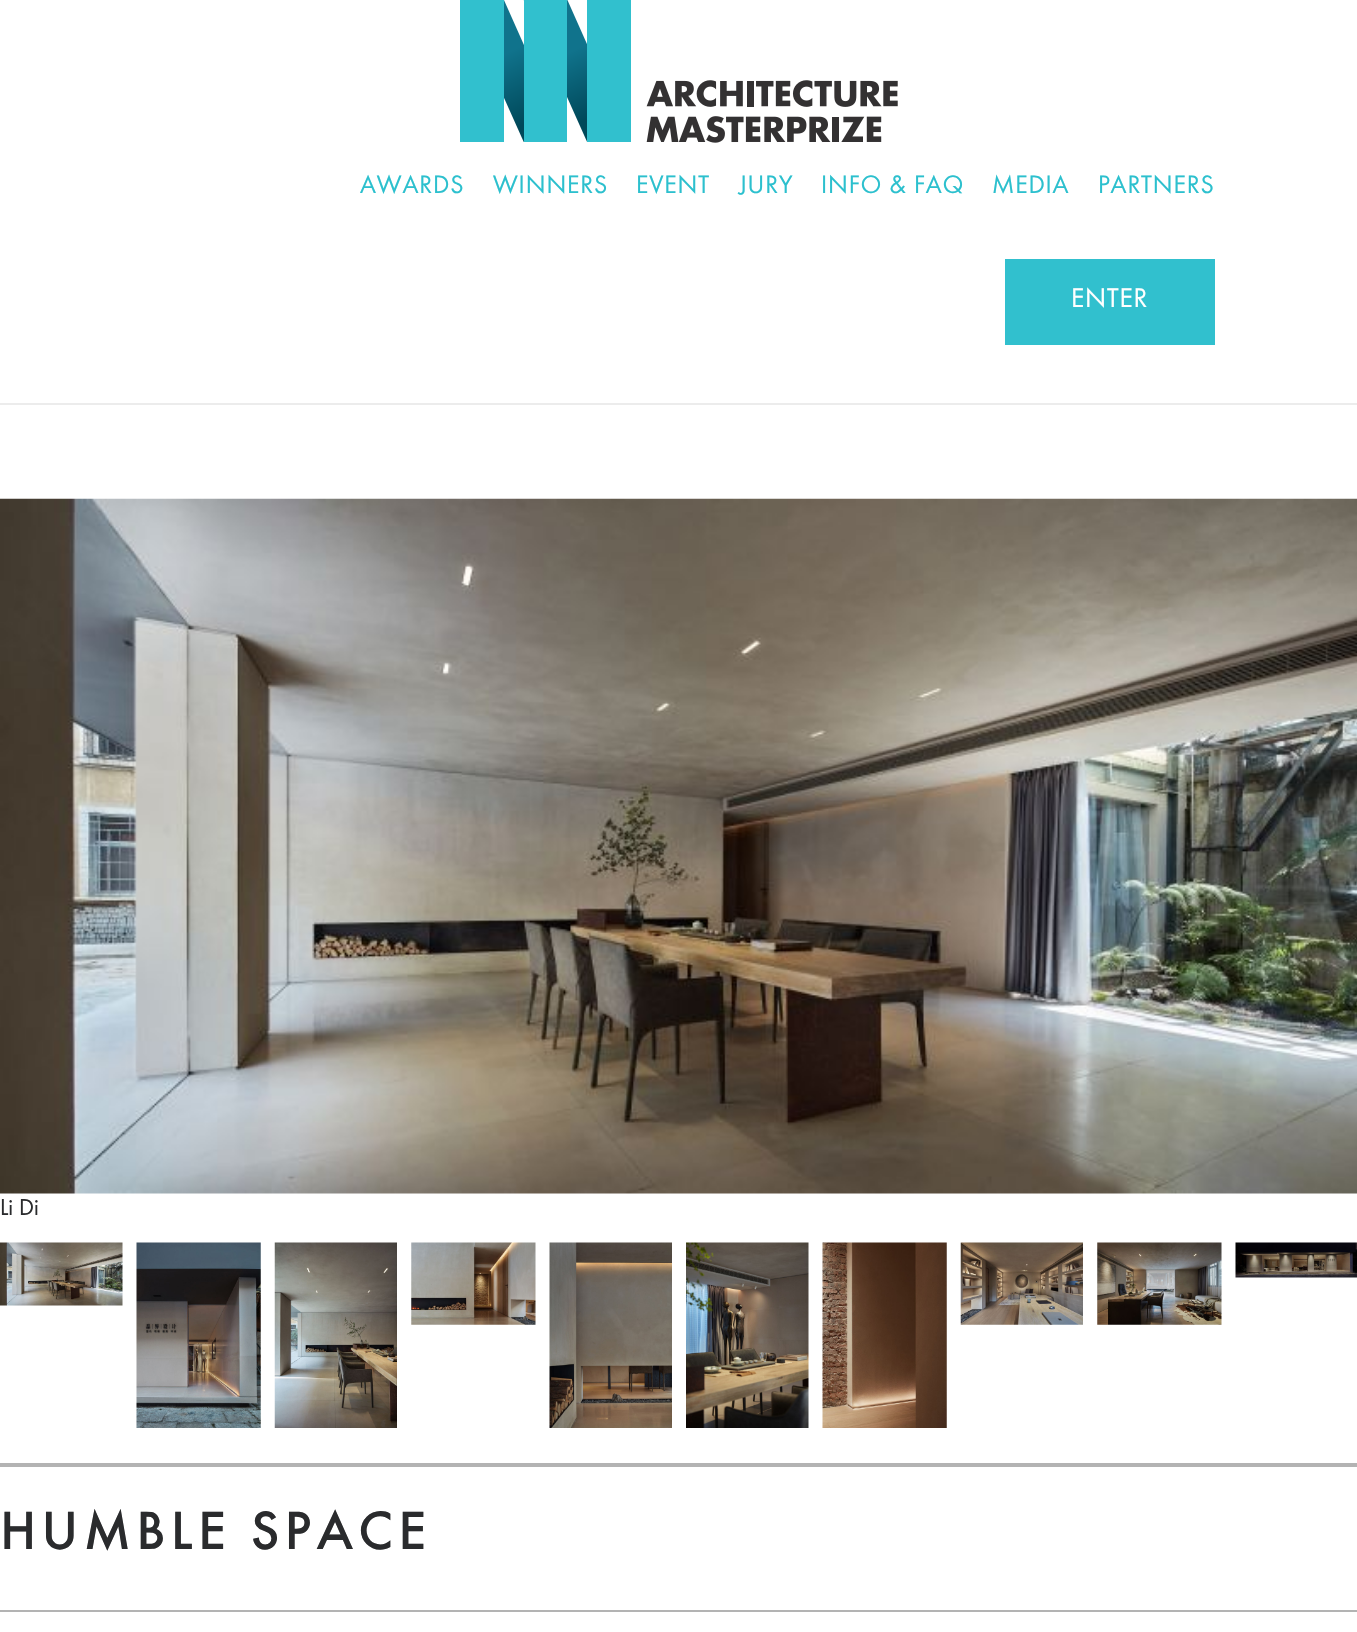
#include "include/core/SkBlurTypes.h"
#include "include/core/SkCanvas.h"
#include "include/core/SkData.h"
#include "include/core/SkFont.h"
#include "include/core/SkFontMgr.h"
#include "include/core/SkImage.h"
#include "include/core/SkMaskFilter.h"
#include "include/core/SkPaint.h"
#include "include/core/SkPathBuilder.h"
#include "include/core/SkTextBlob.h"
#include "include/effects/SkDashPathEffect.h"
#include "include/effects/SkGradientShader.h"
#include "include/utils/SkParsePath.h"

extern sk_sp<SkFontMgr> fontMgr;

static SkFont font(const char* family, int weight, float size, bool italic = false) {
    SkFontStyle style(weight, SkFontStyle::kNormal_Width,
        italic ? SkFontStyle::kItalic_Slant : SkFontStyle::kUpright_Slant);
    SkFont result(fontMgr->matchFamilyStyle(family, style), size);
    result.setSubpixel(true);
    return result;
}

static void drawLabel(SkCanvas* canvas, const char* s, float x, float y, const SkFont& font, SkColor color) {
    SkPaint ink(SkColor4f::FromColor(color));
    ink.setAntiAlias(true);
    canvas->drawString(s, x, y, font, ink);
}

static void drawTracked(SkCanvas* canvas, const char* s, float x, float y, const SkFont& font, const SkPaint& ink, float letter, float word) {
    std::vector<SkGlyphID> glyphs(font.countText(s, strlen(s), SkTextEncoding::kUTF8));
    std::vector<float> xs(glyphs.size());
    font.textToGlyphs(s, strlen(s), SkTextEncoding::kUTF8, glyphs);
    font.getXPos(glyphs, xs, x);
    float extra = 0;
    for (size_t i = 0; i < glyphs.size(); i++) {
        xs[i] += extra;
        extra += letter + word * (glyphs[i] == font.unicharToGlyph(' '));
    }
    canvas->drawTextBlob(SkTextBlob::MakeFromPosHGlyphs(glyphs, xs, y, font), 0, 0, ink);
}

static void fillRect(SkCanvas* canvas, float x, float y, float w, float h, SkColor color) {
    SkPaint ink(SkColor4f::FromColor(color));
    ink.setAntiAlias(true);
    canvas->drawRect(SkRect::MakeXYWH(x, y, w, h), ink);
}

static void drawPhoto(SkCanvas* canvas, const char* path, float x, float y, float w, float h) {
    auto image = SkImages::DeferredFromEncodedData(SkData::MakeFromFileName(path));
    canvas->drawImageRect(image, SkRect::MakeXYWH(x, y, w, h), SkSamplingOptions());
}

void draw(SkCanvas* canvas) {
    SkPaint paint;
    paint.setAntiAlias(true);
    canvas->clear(0xFFFFFFFF);
    fillRect(canvas, 0, 403, 1357, 2, 0xFFECECEC);
    drawPhoto(canvas, "assets/img1.png", 460, 0, 438, 143);
    SkFont font1 = font("Futura", 400, 26.25f);
    paint.setColor(0xFF2CC0CE);
    drawTracked(canvas, "AWARDS", 360, 193, font1, paint, 0.9f, 0);
    drawTracked(canvas, "WINNERS", 493, 193, font1, paint, 0.9f, 0);
    drawTracked(canvas, "EVENT", 636, 193, font1, paint, 0.9f, 0);
    drawTracked(canvas, "JURY", 739, 193, font1, paint, 0.9f, 0);
    drawTracked(canvas, "INFO & FAQ", 821, 193, font1, paint, 0.9f, 0);
    drawTracked(canvas, "MEDIA", 992, 193, font1, paint, 0.9f, 0);
    drawTracked(canvas, "PARTNERS", 1098, 193, font1, paint, 0.9f, 0);
    fillRect(canvas, 1005, 259, 210, 86, 0xFF31C0CE);
    SkFont font2 = font("Futura", 400, 28);
    paint.setColor(0xFFFFFFFF);
    drawTracked(canvas, "ENTER", 1071, 307, font2, paint, 0.9f, 0);
    drawPhoto(canvas, "assets/img2.png", 0, 498, 1357, 696);
    SkFont font3 = font("Futura", 400, 24);
    drawLabel(canvas, "Li Di", 0, 1215, font3, 0xFF2A2B2D);
    drawPhoto(canvas, "assets/img3.png", 0, 1242, 123, 64);
    drawPhoto(canvas, "assets/img4.png", 136, 1242, 125, 186);
    drawPhoto(canvas, "assets/img5.png", 274, 1242, 123, 186);
    drawPhoto(canvas, "assets/img6.png", 411, 1242, 125, 83);
    drawPhoto(canvas, "assets/img7.png", 549, 1242, 123, 186);
    drawPhoto(canvas, "assets/img8.png", 686, 1242, 123, 186);
    drawPhoto(canvas, "assets/img9.png", 822, 1242, 125, 186);
    drawPhoto(canvas, "assets/img10.png", 960, 1242, 123, 83);
    drawPhoto(canvas, "assets/img11.png", 1097, 1242, 125, 83);
    drawPhoto(canvas, "assets/img12.png", 1235, 1242, 122, 36);
    fillRect(canvas, 0, 1463, 1357, 4, 0xFFB3B3B3);
    SkFont font4 = font("Futura", 500, 56);
    paint.setColor(0xFF2A2B2D);
    drawTracked(canvas, "HUMBLE SPACE", 0, 1549, font4, paint, 5.25f, 0);
    fillRect(canvas, 0, 1610, 1357, 2, 0xFFB3B3B3);
}
